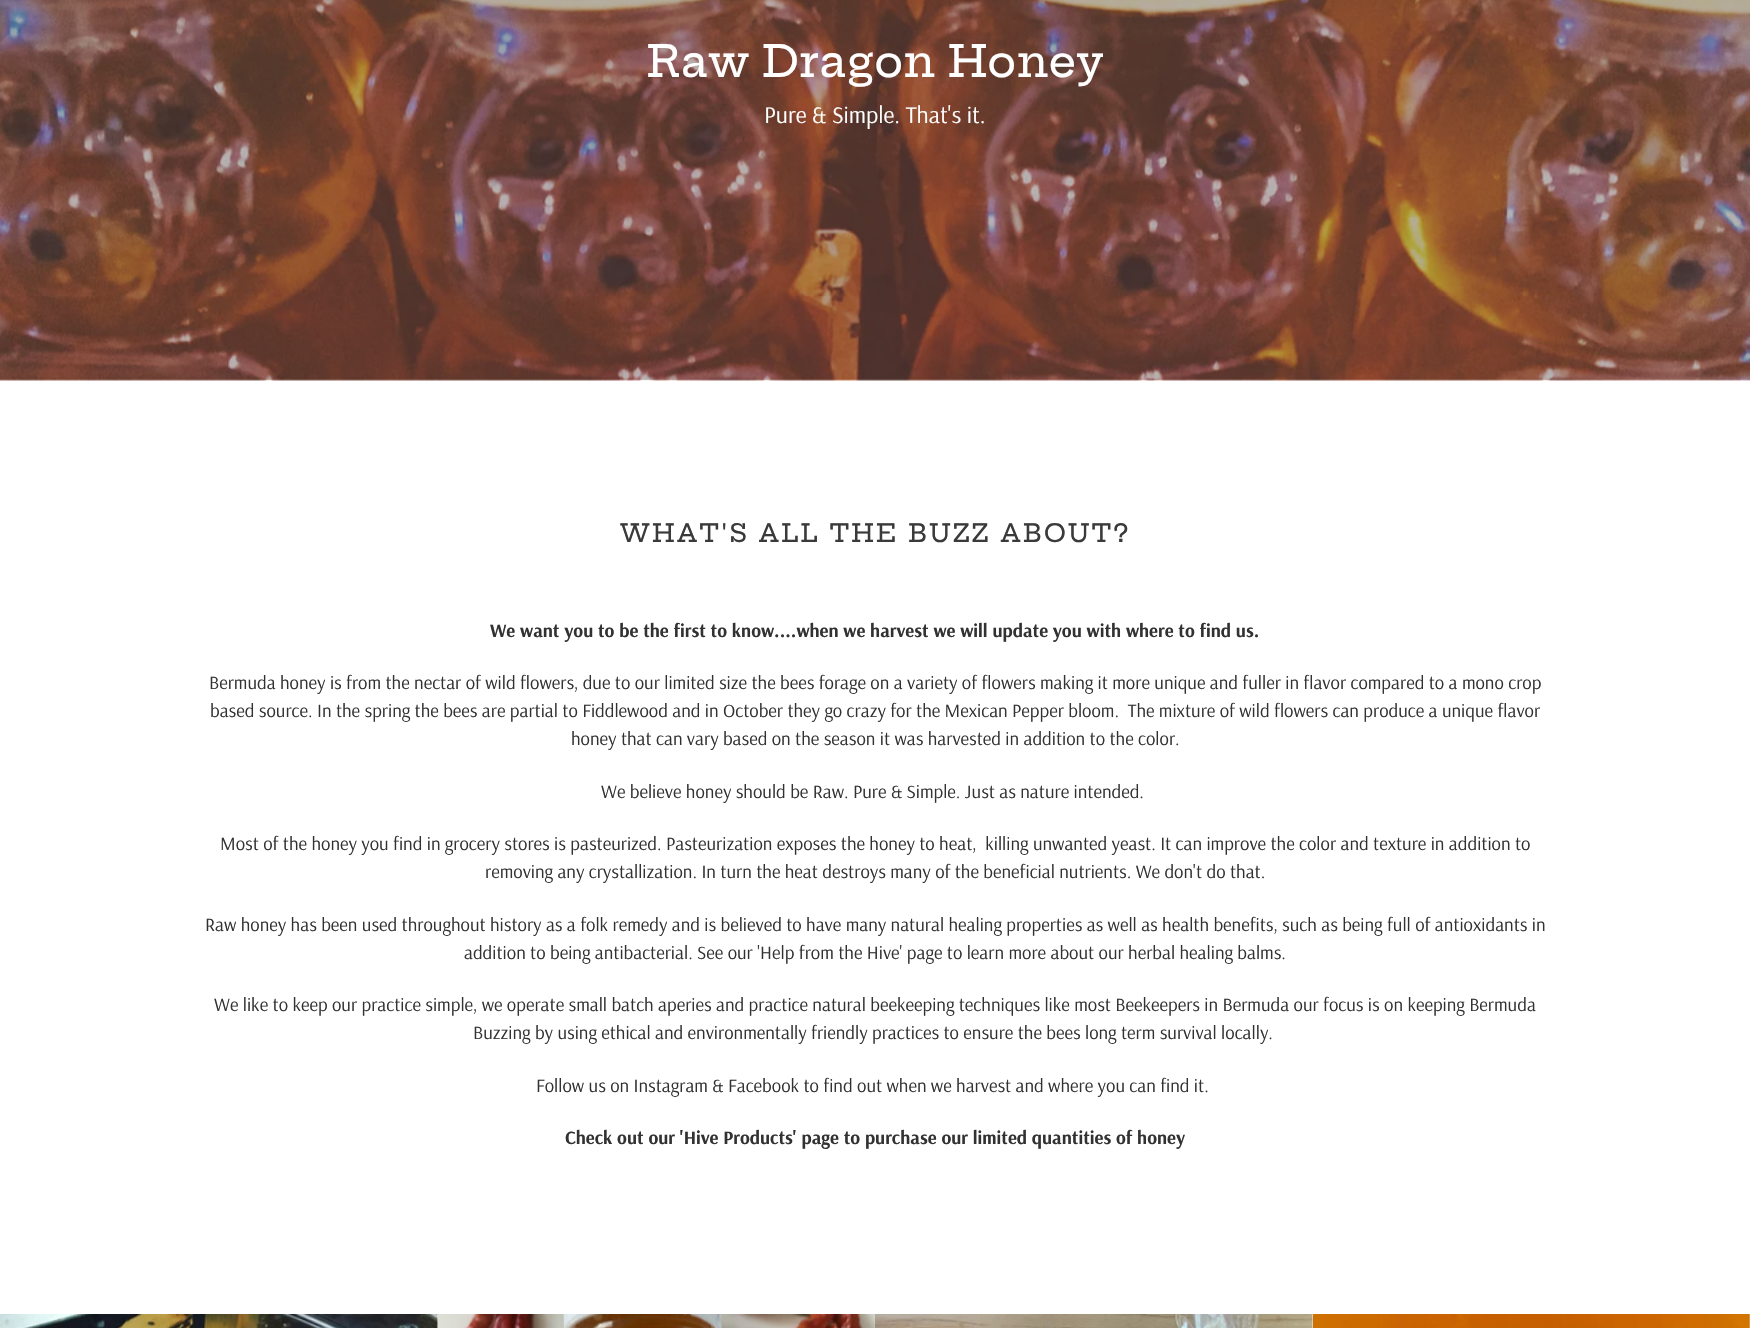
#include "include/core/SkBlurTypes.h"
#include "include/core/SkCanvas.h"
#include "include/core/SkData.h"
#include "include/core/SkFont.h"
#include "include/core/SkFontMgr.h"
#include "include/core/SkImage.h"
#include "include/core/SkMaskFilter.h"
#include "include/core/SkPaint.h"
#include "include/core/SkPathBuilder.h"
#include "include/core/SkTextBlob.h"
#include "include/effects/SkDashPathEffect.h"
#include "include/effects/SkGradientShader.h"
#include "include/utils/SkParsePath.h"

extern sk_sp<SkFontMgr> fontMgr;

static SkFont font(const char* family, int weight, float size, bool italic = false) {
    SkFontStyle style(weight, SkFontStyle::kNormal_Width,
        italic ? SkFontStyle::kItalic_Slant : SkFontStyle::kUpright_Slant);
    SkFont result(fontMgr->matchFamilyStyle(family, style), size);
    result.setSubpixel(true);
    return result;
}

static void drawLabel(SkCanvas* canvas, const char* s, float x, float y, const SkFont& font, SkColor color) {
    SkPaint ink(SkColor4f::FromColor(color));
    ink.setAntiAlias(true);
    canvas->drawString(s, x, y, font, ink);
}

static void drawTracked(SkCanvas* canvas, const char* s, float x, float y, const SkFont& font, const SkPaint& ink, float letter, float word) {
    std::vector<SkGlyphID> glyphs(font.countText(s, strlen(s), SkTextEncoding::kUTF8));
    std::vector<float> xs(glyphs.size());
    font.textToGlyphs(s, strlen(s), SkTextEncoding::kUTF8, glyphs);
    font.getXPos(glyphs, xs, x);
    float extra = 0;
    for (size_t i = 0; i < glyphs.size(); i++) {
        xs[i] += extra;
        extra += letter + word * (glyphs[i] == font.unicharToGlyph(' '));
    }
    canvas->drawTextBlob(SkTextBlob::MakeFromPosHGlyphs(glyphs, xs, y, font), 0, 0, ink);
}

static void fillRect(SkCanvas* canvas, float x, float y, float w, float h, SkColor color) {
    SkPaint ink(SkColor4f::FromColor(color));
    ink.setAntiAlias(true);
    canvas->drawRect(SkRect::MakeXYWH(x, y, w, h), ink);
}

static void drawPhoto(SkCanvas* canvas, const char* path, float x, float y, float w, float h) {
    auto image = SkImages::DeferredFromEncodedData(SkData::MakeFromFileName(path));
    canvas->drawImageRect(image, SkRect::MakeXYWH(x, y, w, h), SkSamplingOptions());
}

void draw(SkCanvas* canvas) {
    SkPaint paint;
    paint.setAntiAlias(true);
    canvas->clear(0xFFFFFFFF);
    drawPhoto(canvas, "assets/img1.png", 0, 0, 1750, 381);
    SkFont font1 = font("Hepta Slab", 500, 43.75f);
    drawLabel(canvas, "Raw Dragon Honey", 647, 77, font1, 0xFFFFFFFF);
    SkFont font2 = font("Arsenal", 400, 23.75f);
    drawLabel(canvas, "Pure & Simple. That's it.", 764, 123, font2, 0xFFFFFFFF);
    SkFont font3 = font("Hepta Slab", 500, 25);
    paint.setColor(0xFF3A3A3A);
    drawTracked(canvas, "WHAT'S ALL THE BUZZ ABOUT?", 620, 542, font3, paint, 2.5f, 0);
    SkFont font4 = font("Arsenal", 700, 18.75f);
    drawLabel(canvas, "We want you to be the first to know....when we harvest we will update you with where to find us.", 490, 637, font4, 0xFF333232);
    SkFont font5 = font("Arsenal", 400, 18.75f);
    drawLabel(canvas, "Bermuda honey is from the nectar of wild flowers, due to our limited size the bees forage on a variety of flowers making it more unique and fuller in flavor compared to a mono crop", 209, 689, font5, 0xFF333232);
    drawLabel(canvas, "based source. In the spring the bees are partial to Fiddlewood and in October they go crazy for the Mexican Pepper bloom.  The mixture of wild flowers can produce a unique flavor", 210, 717, font5, 0xFF333232);
    drawLabel(canvas, "honey that can vary based on the season it was harvested in addition to the color.", 571, 745, font5, 0xFF333232);
    drawLabel(canvas, "We believe honey should be Raw. Pure & Simple. Just as nature intended.", 601, 798, font5, 0xFF333232);
    drawLabel(canvas, "Most of the honey you find in grocery stores is pasteurized. Pasteurization exposes the honey to heat,  killing unwanted yeast. It can improve the color and texture in addition to", 220, 850, font5, 0xFF333232);
    drawLabel(canvas, "removing any crystallization. In turn the heat destroys many of the beneficial nutrients. We don't do that.", 485, 878, font5, 0xFF333232);
    drawLabel(canvas, "Raw honey has been used throughout history as a folk remedy and is believed to have many natural healing properties as well as health benefits, such as being full of antioxidants in", 205, 931, font5, 0xFF333232);
    drawLabel(canvas, "addition to being antibacterial. See our 'Help from the Hive' page to learn more about our herbal healing balms.", 464, 959, font5, 0xFF333232);
    drawLabel(canvas, "We like to keep our practice simple, we operate small batch aperies and practice natural beekeeping techniques like most Beekeepers in Bermuda our focus is on keeping Bermuda", 214, 1011, font5, 0xFF333232);
    drawLabel(canvas, "Buzzing by using ethical and environmentally friendly practices to ensure the bees long term survival locally.", 473, 1039, font5, 0xFF333232);
    drawLabel(canvas, "Follow us on Instagram & Facebook to find out when we harvest and where you can find it.", 536, 1092, font5, 0xFF333232);
    drawLabel(canvas, "Check out our 'Hive Products' page to purchase our limited quantities of honey", 565, 1144, font4, 0xFF333232);
    fillRect(canvas, 437, 1314, 1, 14, 0xFFF7F7F7);
    drawPhoto(canvas, "assets/img2.png", 0, 1314, 438, 14);
    drawPhoto(canvas, "assets/img3.png", 438, 1314, 437, 14);
    fillRect(canvas, 1312, 1314, 1, 14, 0xFFF7F7F7);
    drawPhoto(canvas, "assets/img4.png", 875, 1314, 438, 14);
    drawPhoto(canvas, "assets/img5.png", 1313, 1314, 437, 14);
}
